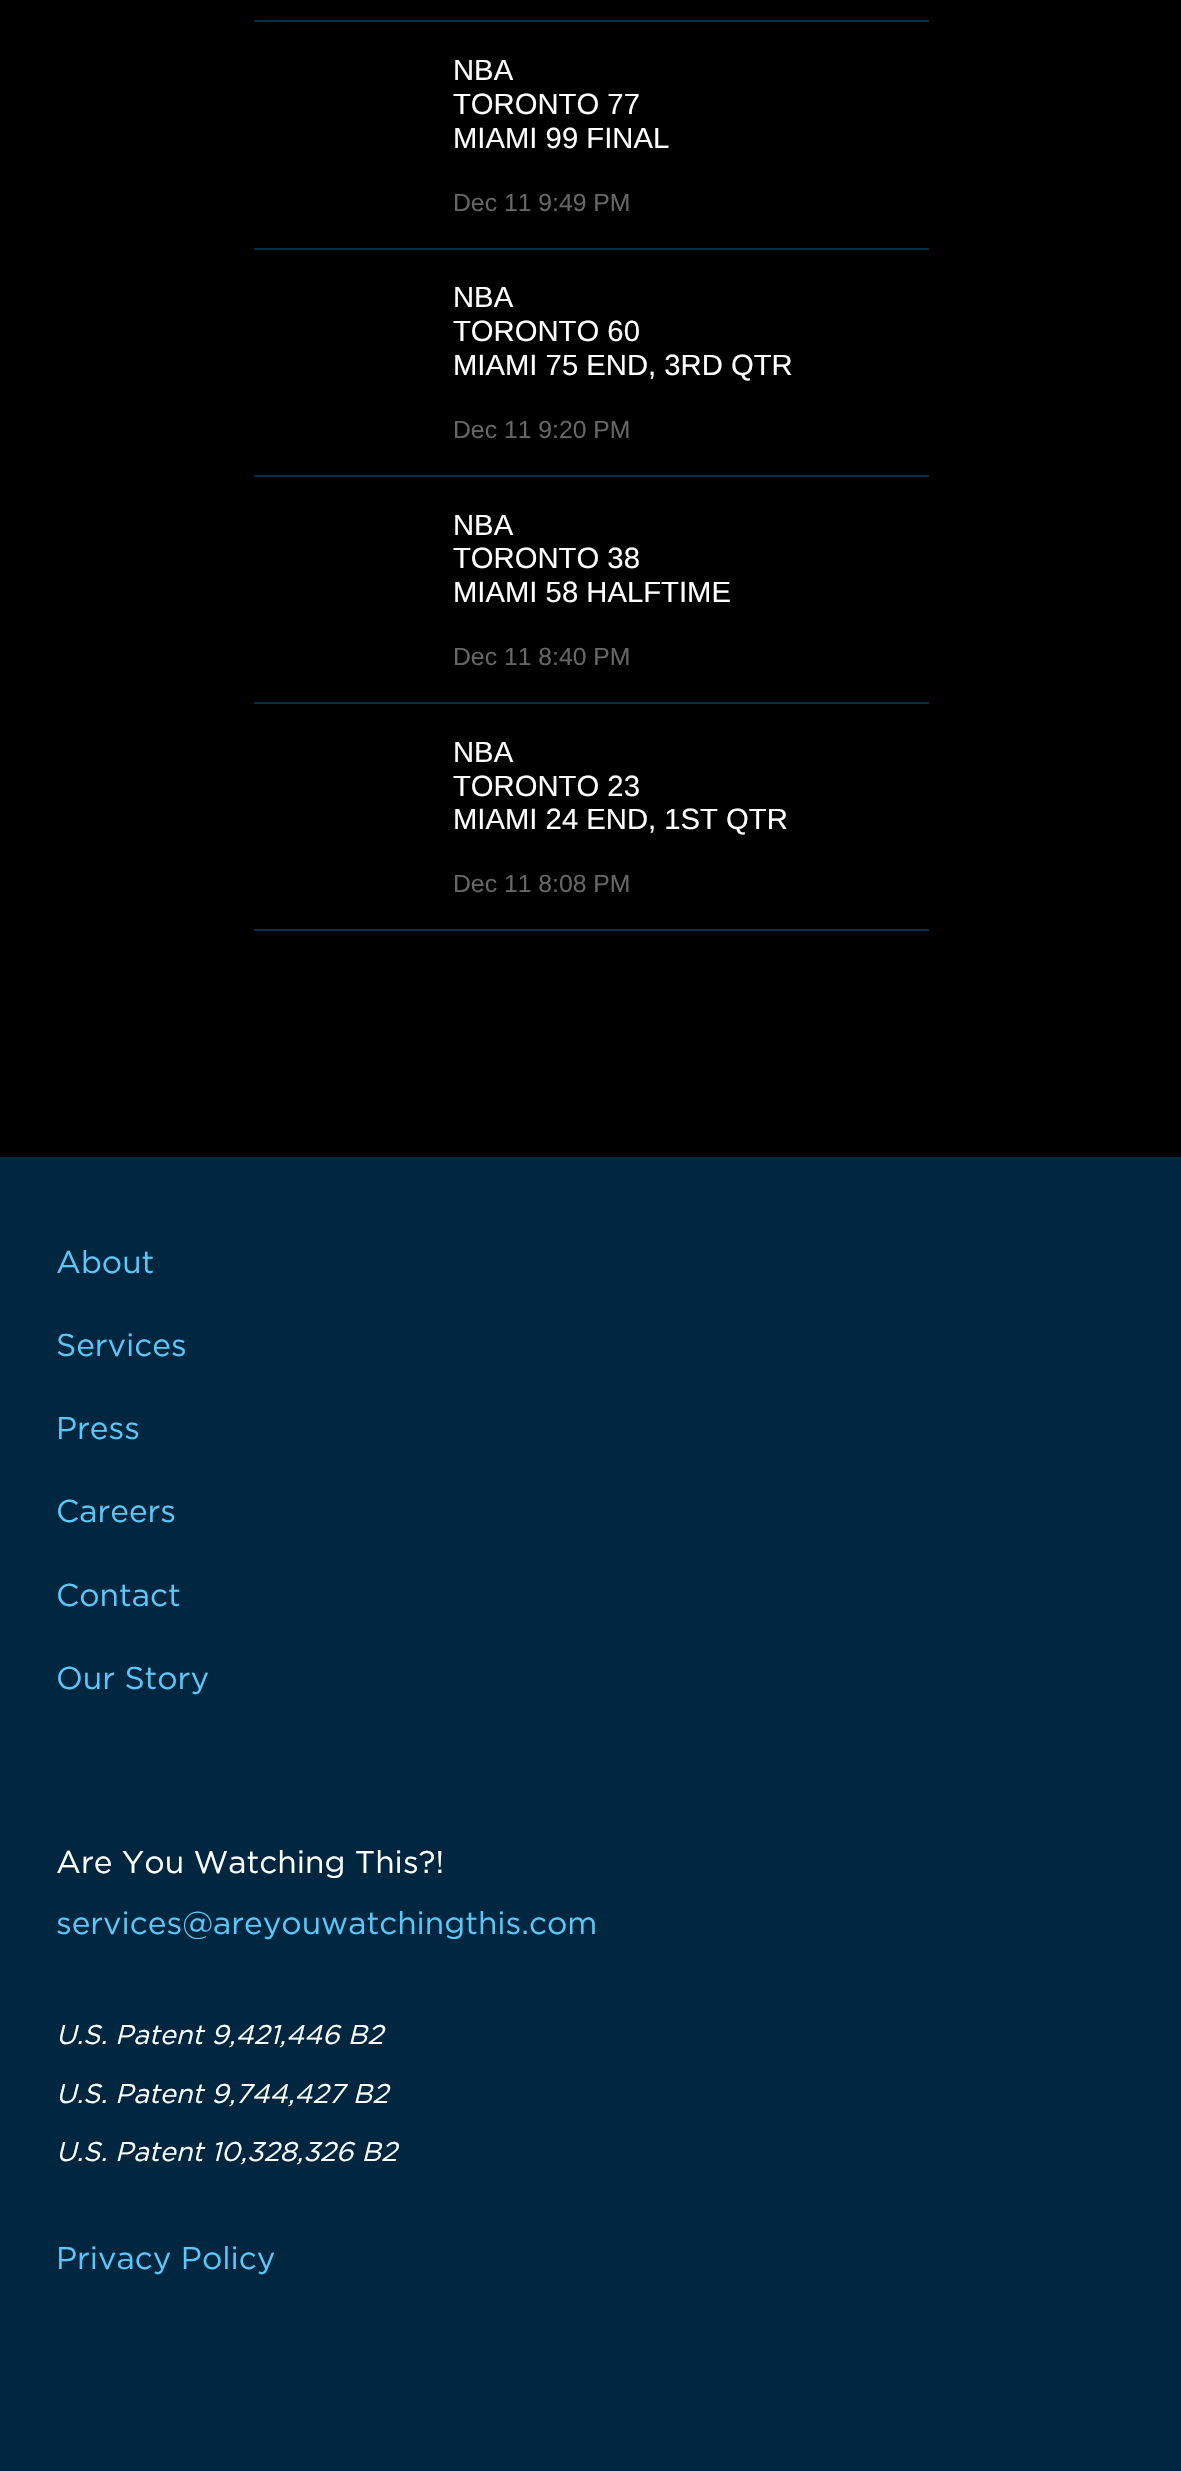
#include "include/core/SkBlurTypes.h"
#include "include/core/SkCanvas.h"
#include "include/core/SkData.h"
#include "include/core/SkFont.h"
#include "include/core/SkFontMgr.h"
#include "include/core/SkImage.h"
#include "include/core/SkMaskFilter.h"
#include "include/core/SkPaint.h"
#include "include/core/SkPathBuilder.h"
#include "include/core/SkTextBlob.h"
#include "include/effects/SkDashPathEffect.h"
#include "include/effects/SkGradientShader.h"
#include "include/utils/SkParsePath.h"

extern sk_sp<SkFontMgr> fontMgr;

static SkFont font(const char* family, int weight, float size, bool italic = false) {
    SkFontStyle style(weight, SkFontStyle::kNormal_Width,
        italic ? SkFontStyle::kItalic_Slant : SkFontStyle::kUpright_Slant);
    SkFont result(fontMgr->matchFamilyStyle(family, style), size);
    result.setSubpixel(true);
    return result;
}

static void drawLabel(SkCanvas* canvas, const char* s, float x, float y, const SkFont& font, SkColor color) {
    SkPaint ink(SkColor4f::FromColor(color));
    ink.setAntiAlias(true);
    canvas->drawString(s, x, y, font, ink);
}

static void fillRect(SkCanvas* canvas, float x, float y, float w, float h, SkColor color) {
    SkPaint ink(SkColor4f::FromColor(color));
    ink.setAntiAlias(true);
    canvas->drawRect(SkRect::MakeXYWH(x, y, w, h), ink);
}

void draw(SkCanvas* canvas) {
    SkPaint paint;
    paint.setAntiAlias(true);
    canvas->clear(0xFF000000);
    fillRect(canvas, 254, 20, 675, 2, 0xFF003147);
    fillRect(canvas, 254, 248, 675, 2, 0xFF003147);
    SkFont font1 = font("Liberation Sans", 400, 29.25f);
    drawLabel(canvas, "NBA", 453, 80, font1, 0xFFFFFFFF);
    drawLabel(canvas, "TORONTO 77", 453, 114, font1, 0xFFFFFFFF);
    drawLabel(canvas, "MIAMI 99 FINAL", 453, 148, font1, 0xFFFFFFFF);
    SkFont font2 = font("Liberation Sans", 400, 24.75f);
    drawLabel(canvas, "Dec 11 9:49 PM", 453, 211, font2, 0xFF666666);
    fillRect(canvas, 254, 475, 675, 2, 0xFF003147);
    drawLabel(canvas, "NBA", 453, 307, font1, 0xFFFFFFFF);
    drawLabel(canvas, "TORONTO 60", 453, 341, font1, 0xFFFFFFFF);
    drawLabel(canvas, "MIAMI 75 END, 3RD QTR", 453, 375, font1, 0xFFFFFFFF);
    drawLabel(canvas, "Dec 11 9:20 PM", 453, 438, font2, 0xFF666666);
    fillRect(canvas, 254, 702, 675, 2, 0xFF003147);
    drawLabel(canvas, "NBA", 453, 535, font1, 0xFFFFFFFF);
    drawLabel(canvas, "TORONTO 38", 453, 568, font1, 0xFFFFFFFF);
    drawLabel(canvas, "MIAMI 58 HALFTIME", 453, 602, font1, 0xFFFFFFFF);
    drawLabel(canvas, "Dec 11 8:40 PM", 453, 665, font2, 0xFF666666);
    fillRect(canvas, 254, 929, 675, 2, 0xFF003147);
    drawLabel(canvas, "NBA", 453, 762, font1, 0xFFFFFFFF);
    drawLabel(canvas, "TORONTO 23", 453, 796, font1, 0xFFFFFFFF);
    drawLabel(canvas, "MIAMI 24 END, 1ST QTR", 453, 829, font1, 0xFFFFFFFF);
    drawLabel(canvas, "Dec 11 8:08 PM", 453, 892, font2, 0xFF666666);
    fillRect(canvas, 0, 1157, 1181, 1314, 0xFF002640);
    SkFont font3 = font("Gotham", 400, 31.5f);
    drawLabel(canvas, "About", 56, 1273, font3, 0xFF5AC8FA);
    drawLabel(canvas, "Services", 56, 1356, font3, 0xFF5AC8FA);
    drawLabel(canvas, "Press", 56, 1439, font3, 0xFF5AC8FA);
    drawLabel(canvas, "Careers", 56, 1522, font3, 0xFF5AC8FA);
    drawLabel(canvas, "Contact", 56, 1606, font3, 0xFF5AC8FA);
    drawLabel(canvas, "Our Story", 56, 1689, font3, 0xFF5AC8FA);
    drawLabel(canvas, "Are You Watching This?!", 56, 1873, font3, 0xFFFFFFFF);
    drawLabel(canvas, "services@areyouwatchingthis.com", 56, 1934, font3, 0xFF5AC8FA);
    SkFont font4 = font("Gotham", 400, 27, true);
    drawLabel(canvas, "U.S. Patent 9,421,446 B2", 56, 2044, font4, 0xFFFFFFFF);
    drawLabel(canvas, "U.S. Patent 9,744,427 B2", 56, 2103, font4, 0xFFFFFFFF);
    drawLabel(canvas, "U.S. Patent 10,328,326 B2", 56, 2161, font4, 0xFFFFFFFF);
    drawLabel(canvas, "Privacy Policy", 56, 2269, font3, 0xFF5AC8FA);
}
